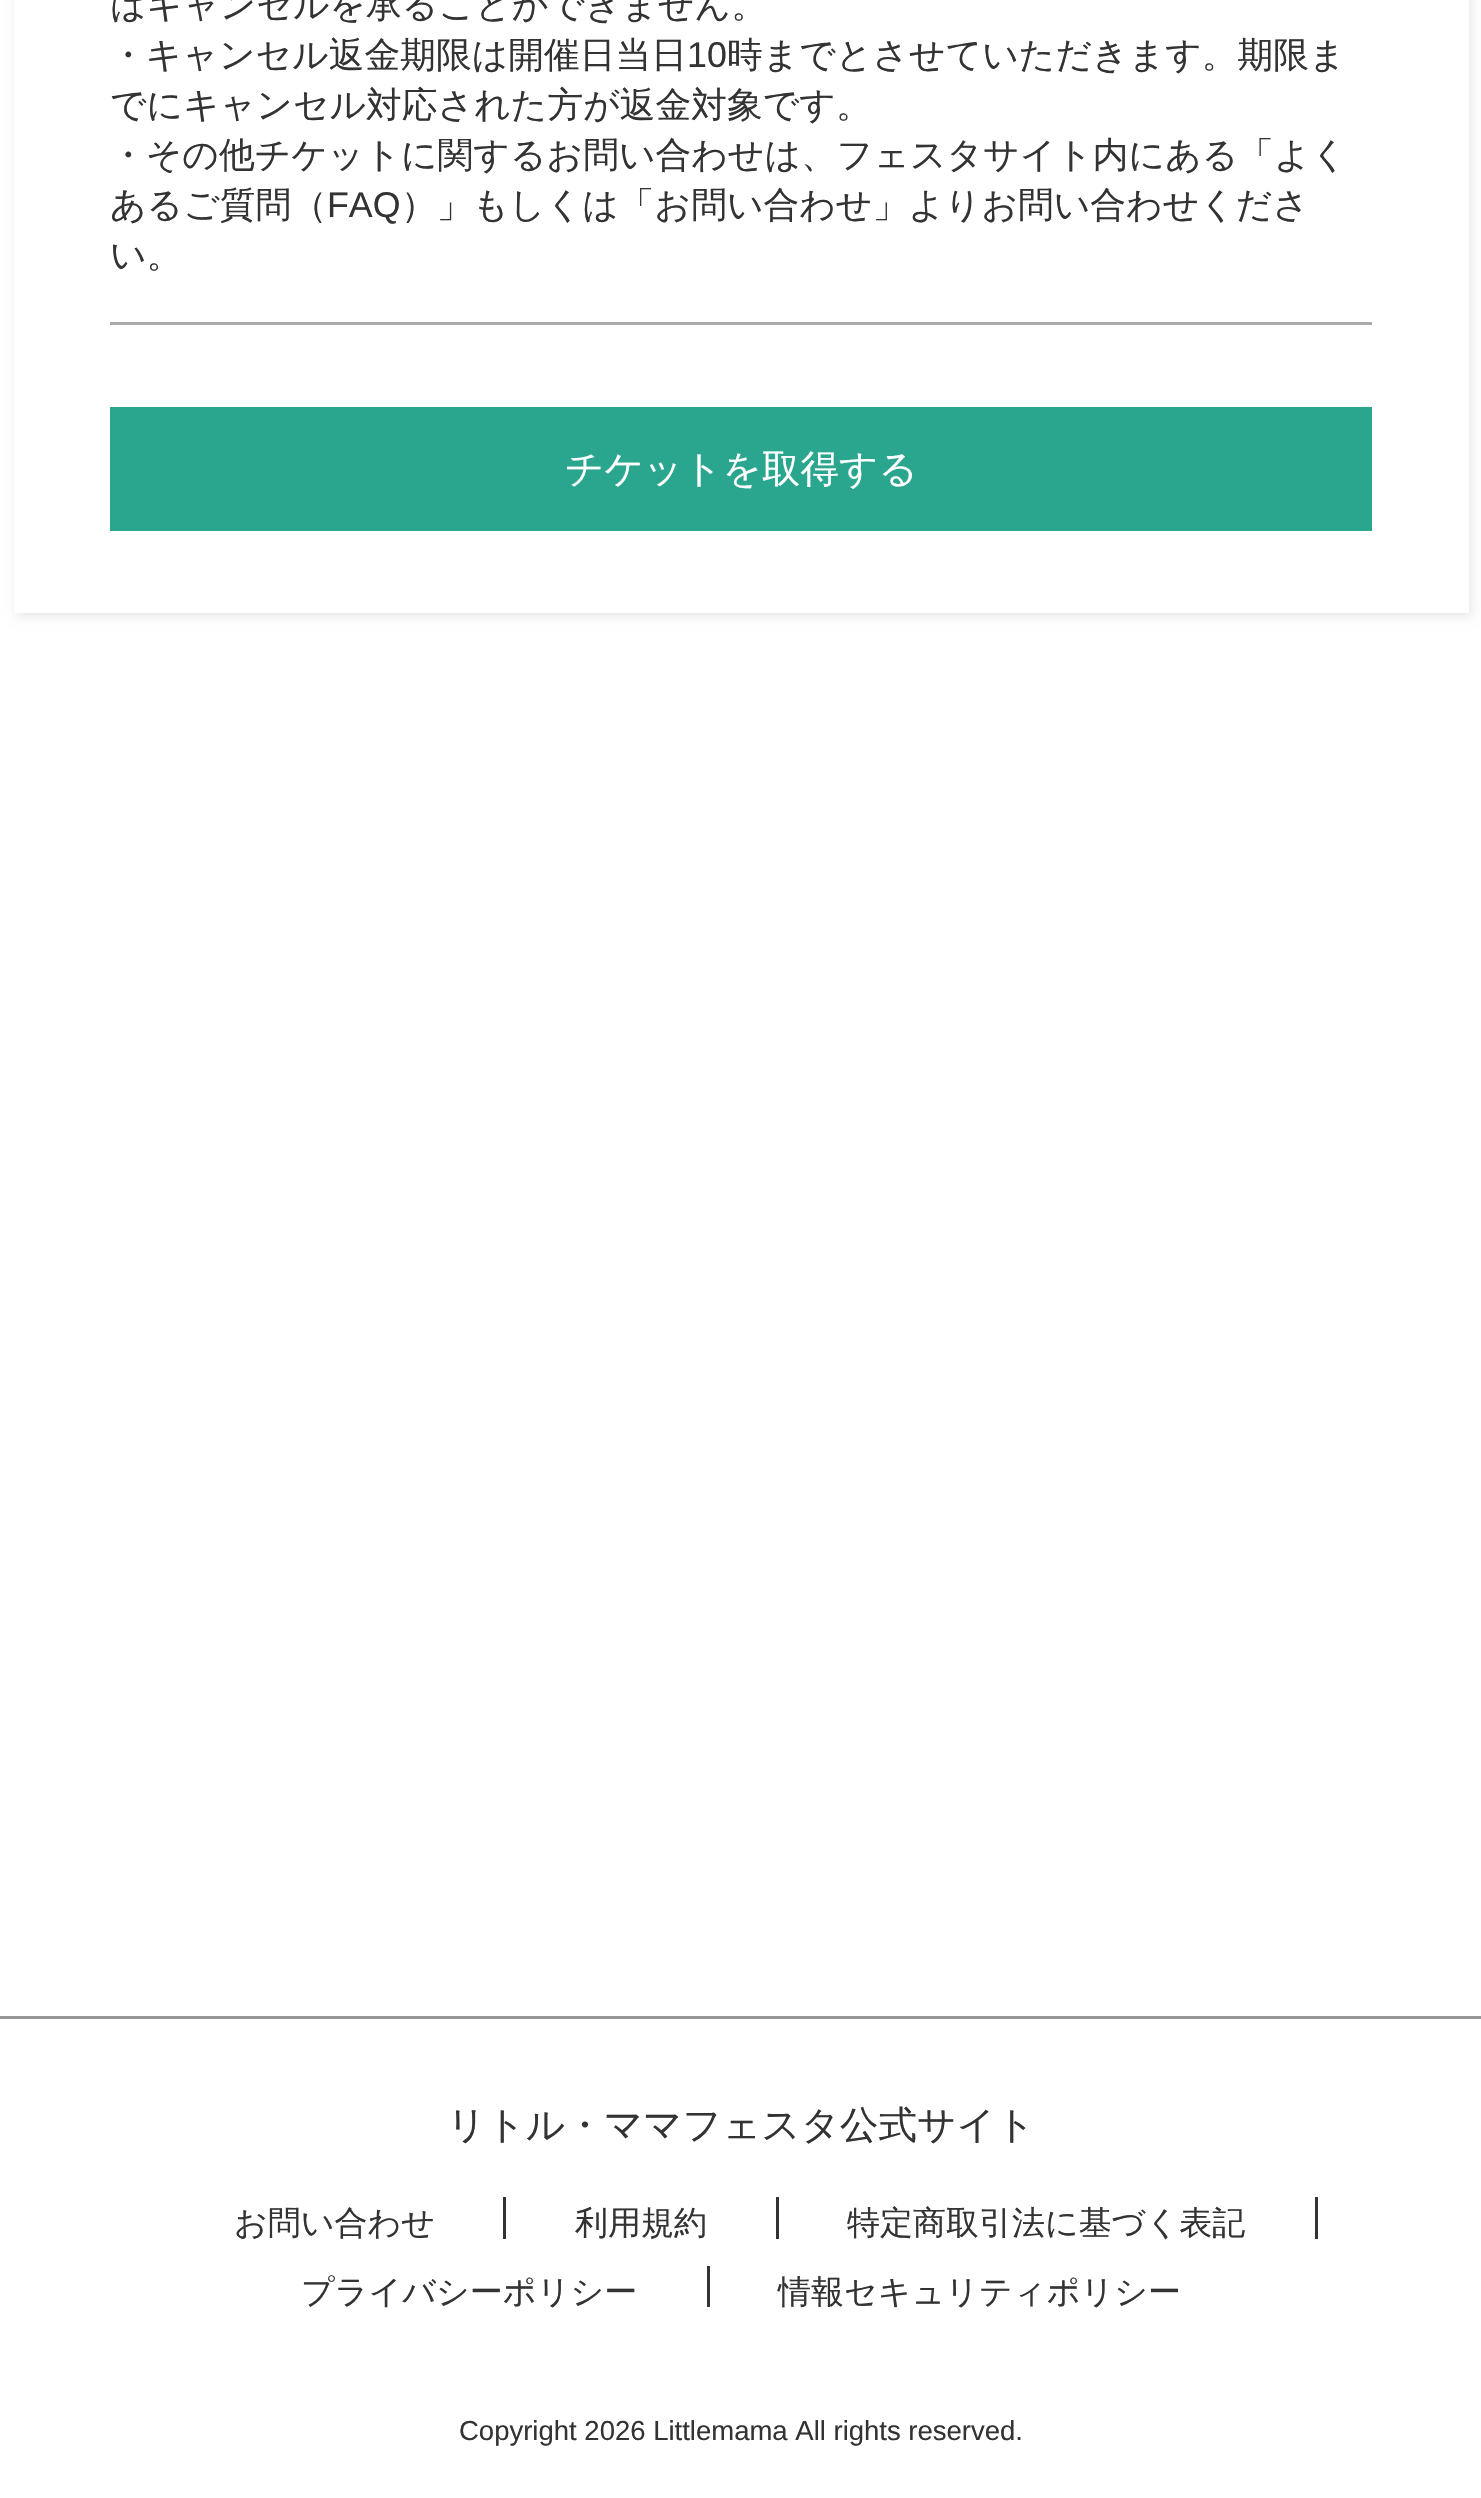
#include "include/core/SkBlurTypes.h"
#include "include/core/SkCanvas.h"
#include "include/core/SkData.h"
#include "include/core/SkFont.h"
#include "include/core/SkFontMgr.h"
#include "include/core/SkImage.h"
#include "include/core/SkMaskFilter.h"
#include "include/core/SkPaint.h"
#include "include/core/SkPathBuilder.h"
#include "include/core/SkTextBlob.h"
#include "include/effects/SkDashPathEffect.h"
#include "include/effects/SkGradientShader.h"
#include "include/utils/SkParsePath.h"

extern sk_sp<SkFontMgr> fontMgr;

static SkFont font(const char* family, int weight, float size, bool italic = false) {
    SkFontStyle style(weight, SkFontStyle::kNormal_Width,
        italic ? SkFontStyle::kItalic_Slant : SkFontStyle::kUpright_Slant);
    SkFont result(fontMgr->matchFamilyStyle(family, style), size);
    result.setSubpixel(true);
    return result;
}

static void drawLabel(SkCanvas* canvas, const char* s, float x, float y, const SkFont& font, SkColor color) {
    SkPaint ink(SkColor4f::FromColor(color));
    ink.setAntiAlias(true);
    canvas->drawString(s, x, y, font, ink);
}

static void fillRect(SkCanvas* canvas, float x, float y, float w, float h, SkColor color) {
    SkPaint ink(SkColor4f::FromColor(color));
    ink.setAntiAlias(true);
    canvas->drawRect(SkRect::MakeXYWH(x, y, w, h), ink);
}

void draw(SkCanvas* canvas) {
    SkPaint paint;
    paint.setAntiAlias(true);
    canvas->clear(0xFFFFFFFF);
    paint.setColor(0x1A000000);
    paint.setMaskFilter(SkMaskFilter::MakeBlur(kNormal_SkBlurStyle, 5.5f));
    canvas->drawRect(SkRect::MakeXYWH(17, -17, 1454, 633), paint);
    paint.setMaskFilter(nullptr);
    fillRect(canvas, 14, 0, 1455, 613, 0xFFFFFFFF);
    fillRect(canvas, 110, 322, 1262, 3, 0xFFAAAAAA);
    SkFont font1 = font("WenQuanYi Zen Hei", 500, 35.75f);
    drawLabel(canvas, "はキャンセルを承ることができません。", 110, 17, font1, 0xFF333333);
    drawLabel(canvas, "・キャンセル返金期限は開催日当日", 110, 67, font1, 0xFF333333);
    SkFont font2 = font("Liberation Sans", 400, 35.75f);
    drawLabel(canvas, "10", 687, 67, font2, 0xFF333333);
    drawLabel(canvas, "時までとさせていただきます。期限ま", 727, 67, font1, 0xFF333333);
    drawLabel(canvas, "でにキャンセル対応された方が返金対象です。", 110, 117, font1, 0xFF333333);
    drawLabel(canvas, "・その他チケットに関するお問い合わせは、フェスタサイト内にある「よく", 110, 167, font1, 0xFF333333);
    drawLabel(canvas, "あるご質問（", 110, 217, font1, 0xFF333333);
    drawLabel(canvas, "FAQ", 327, 217, font2, 0xFF333333);
    drawLabel(canvas, "）」もしくは「お問い合わせ」よりお問い合わせくださ", 401, 217, font1, 0xFF333333);
    drawLabel(canvas, "い。", 110, 267, font1, 0xFF333333);
    fillRect(canvas, 110, 407, 1262, 124, 0xFF2AA58E);
    SkFont font3 = font("WenQuanYi Zen Hei", 500, 38.5f);
    drawLabel(canvas, "チケットを取得する", 565, 482, font3, 0xFFFFFFFF);
    fillRect(canvas, 0, 2016, 1481, 3, 0xFF979797);
    drawLabel(canvas, "リトル・ママフェスタ公式サイト", 447, 2138, font3, 0xFF333333);
    fillRect(canvas, 503, 2197, 3, 42, 0xFF333333);
    SkFont font4 = font("WenQuanYi Zen Hei", 500, 33);
    drawLabel(canvas, "お問い合わせ", 234, 2234, font4, 0xFF333333);
    fillRect(canvas, 776, 2197, 3, 42, 0xFF333333);
    drawLabel(canvas, "利用規約", 575, 2234, font4, 0xFF333333);
    fillRect(canvas, 1315, 2197, 3, 42, 0xFF333333);
    drawLabel(canvas, "特定商取引法に基づく表記", 847, 2234, font4, 0xFF333333);
    fillRect(canvas, 707, 2266, 3, 41, 0xFF333333);
    drawLabel(canvas, "プライバシーポリシー", 301, 2303, font4, 0xFF333333);
    drawLabel(canvas, "情報セキュリティポリシー", 778, 2303, font4, 0xFF333333);
    SkFont font5 = font("Liberation Sans", 400, 27.5f);
    drawLabel(canvas, "Copyright 2026 Littlemama All rights reserved.", 459, 2440, font5, 0xFF333333);
}
